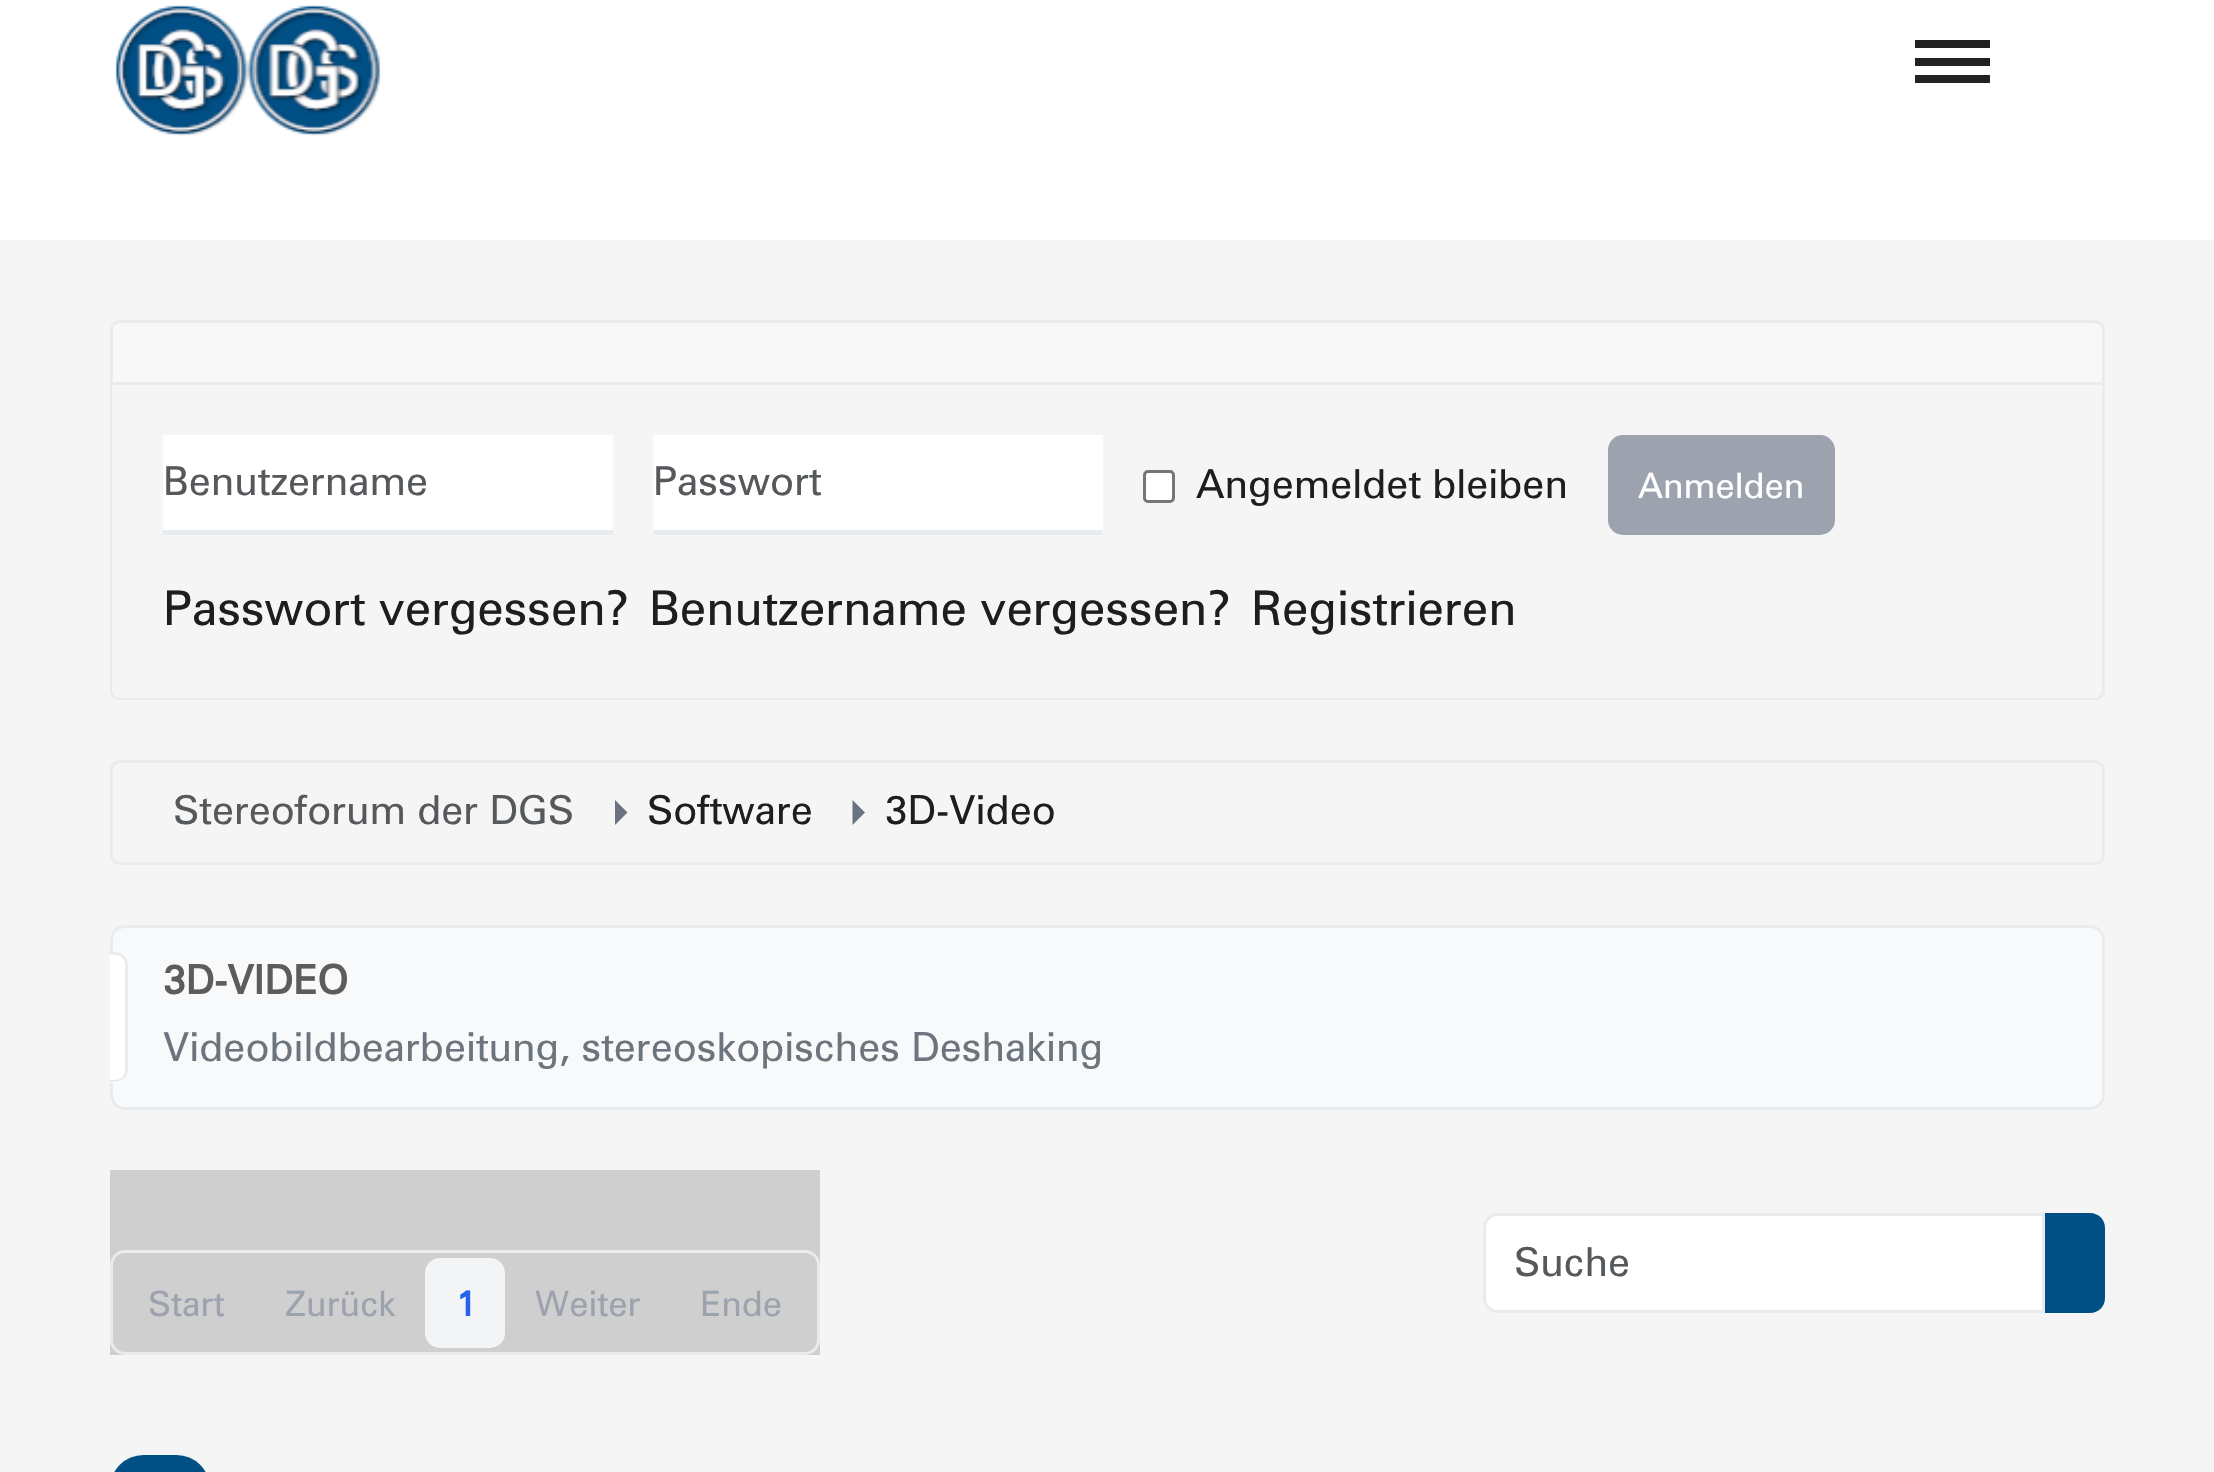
#include "include/core/SkBlurTypes.h"
#include "include/core/SkCanvas.h"
#include "include/core/SkData.h"
#include "include/core/SkFont.h"
#include "include/core/SkFontMgr.h"
#include "include/core/SkImage.h"
#include "include/core/SkMaskFilter.h"
#include "include/core/SkPaint.h"
#include "include/core/SkPathBuilder.h"
#include "include/core/SkTextBlob.h"
#include "include/effects/SkDashPathEffect.h"
#include "include/effects/SkGradientShader.h"
#include "include/utils/SkParsePath.h"

extern sk_sp<SkFontMgr> fontMgr;

static SkFont font(const char* family, int weight, float size, bool italic = false) {
    SkFontStyle style(weight, SkFontStyle::kNormal_Width,
        italic ? SkFontStyle::kItalic_Slant : SkFontStyle::kUpright_Slant);
    SkFont result(fontMgr->matchFamilyStyle(family, style), size);
    result.setSubpixel(true);
    return result;
}

static void drawLabel(SkCanvas* canvas, const char* s, float x, float y, const SkFont& font, SkColor color) {
    SkPaint ink(SkColor4f::FromColor(color));
    ink.setAntiAlias(true);
    canvas->drawString(s, x, y, font, ink);
}

static void fillRect(SkCanvas* canvas, float x, float y, float w, float h, SkColor color) {
    SkPaint ink(SkColor4f::FromColor(color));
    ink.setAntiAlias(true);
    canvas->drawRect(SkRect::MakeXYWH(x, y, w, h), ink);
}

static void fillRRect(SkCanvas* canvas, float x, float y, float w, float h, float radius, SkColor color) {
    SkPaint ink(SkColor4f::FromColor(color));
    ink.setAntiAlias(true);
    canvas->drawRoundRect(SkRect::MakeXYWH(x, y, w, h), radius, radius, ink);
}

static void drawPhoto(SkCanvas* canvas, const char* path, float x, float y, float w, float h) {
    auto image = SkImages::DeferredFromEncodedData(SkData::MakeFromFileName(path));
    canvas->drawImageRect(image, SkRect::MakeXYWH(x, y, w, h), SkSamplingOptions());
}

static SkPath parsePath(const char* data, bool evenOdd = false) {
    SkPath result = *SkParsePath::FromSVGString(data);
    if (evenOdd) result.setFillType(SkPathFillType::kEvenOdd);
    return result;
}

void draw(SkCanvas* canvas) {
    SkPaint paint;
    paint.setAntiAlias(true);
    canvas->clear(0xFFFFFFFF);
    drawPhoto(canvas, "assets/img1.png", 115, 5, 266, 131);
    fillRect(canvas, 1915, 40, 75, 8, 0xFF222222);
    fillRect(canvas, 1915, 58, 75, 8, 0xFF222222);
    fillRect(canvas, 1915, 75, 75, 8, 0xFF222222);
    fillRect(canvas, 0, 240, 2214, 1232, 0xFFF5F5F5);
    paint.setColor(0xFFF8F8F8);
    canvas->drawPath(parsePath("M120 321.5H2095C2099.5 321.5 2103.5 325.5 2103.5 330V383.5H111.5V330C111.5 325.5 115.5 321.5 120 321.5Z"), paint);
    paint.setStroke(true);
    paint.setStrokeWidth(3);
    paint.setColor(0xFFE9ECEF);
    canvas->drawPath(parsePath("M120 321.5H2095C2099.5 321.5 2103.5 325.5 2103.5 330V383.5H111.5V330C111.5 325.5 115.5 321.5 120 321.5Z"), paint);
    paint.setStroke(false);
    canvas->drawPath(parsePath("M110 385H2105V690C2105 696 2101 700 2095 700H120C114 700 110 696 110 690ZM112 385H2102V690C2102 694 2099 698 2095 698H120C116 698 112 694 112 690Z", true), paint);
    fillRect(canvas, 163, 435, 450, 95, 0xFFFFFFFF);
    fillRect(canvas, 163, 530, 450, 5, 0xFFE9ECEF);
    SkFont font1 = font("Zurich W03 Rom", 400, 40);
    drawLabel(canvas, "Benutzername", 163, 495, font1, 0xFF56595C);
    fillRect(canvas, 653, 435, 450, 95, 0xFFFFFFFF);
    fillRect(canvas, 653, 530, 450, 5, 0xFFE9ECEF);
    drawLabel(canvas, "Passwort", 653, 495, font1, 0xFF56595C);
    paint.setColor(0xFFFFFFFF);
    canvas->drawRoundRect(SkRect::MakeXYWH(1144.5f, 471.5f, 29, 30), 3.5f, 3.5f, paint);
    paint.setStroke(true);
    paint.setColor(0xFF767676);
    canvas->drawRoundRect(SkRect::MakeXYWH(1144.5f, 471.5f, 29, 30), 3.5f, 3.5f, paint);
    drawLabel(canvas, "Angemeldet bleiben", 1196, 498, font1, 0xFF1E1E1E);
    fillRRect(canvas, 1608, 435, 227, 100, 15, 0xFF9CA3AF);
    SkFont font2 = font("Zurich W03 Rom", 400, 35);
    drawLabel(canvas, "Anmelden", 1638, 498, font2, 0xFFFFFFFF);
    SkFont font3 = font("Zurich W03 Rom", 400, 48);
    drawLabel(canvas, "Passwort vergessen?", 163, 625, font3, 0xFF1E1E1E);
    drawLabel(canvas, "Benutzername vergessen?", 649, 625, font3, 0xFF1E1E1E);
    drawLabel(canvas, "Registrieren", 1251, 625, font3, 0xFF1E1E1E);
    paint.setColor(0xFFE9ECEF);
    canvas->drawRoundRect(SkRect::MakeXYWH(111.5f, 761.5f, 1992, 102), 8.5f, 8.5f, paint);
    drawLabel(canvas, "Stereoforum der DGS", 173, 824, font1, 0xFF56595C);
    paint.setStroke(false);
    paint.setColor(0xFF6B7280);
    canvas->drawPath(parsePath("M615 825V800L627.5 812.5Z"), paint);
    drawLabel(canvas, "Software", 647, 824, font1, 0xFF1E1E1E);
    canvas->drawPath(parsePath("M852.5 825V800L865 812.5Z"), paint);
    drawLabel(canvas, "3D-Video", 885, 824, font1, 0xFF1E1E1E);
    paint.setColor(0xFFF8F9FA);
    canvas->drawRoundRect(SkRect::MakeXYWH(111.5f, 926.5f, 1992, 182), 13.5f, 13.5f, paint);
    paint.setStroke(true);
    paint.setColor(0xFFE9ECEF);
    canvas->drawRoundRect(SkRect::MakeXYWH(111.5f, 926.5f, 1992, 182), 13.5f, 13.5f, paint);
    paint.setStroke(false);
    paint.setColor(0xFFFFFFFF);
    canvas->drawPath(parsePath("M110 953H115C122 953 128 959 128 966V1070C128 1077 122 1083 115 1083H110Z"), paint);
    paint.setColor(0xFFE9ECEF);
    canvas->drawPath(parsePath("M110 952H115C122 952 128 958 128 965V1070C128 1077 122 1082 115 1082H110ZM110 955H115C121 955 125 959 125 965V1070C125 1076 121 1080 115 1080H110Z", true), paint);
    SkFont font4 = font("Zurich W03 Rom", 700, 40);
    drawLabel(canvas, "3D-VIDEO", 163, 994, font4, 0xFF5C5C5C);
    drawLabel(canvas, "Videobildbearbeitung, stereoskopisches Deshaking", 163, 1061, font1, 0xFF6C757D);
    paint.setColor(0xFFFFFFFF);
    canvas->drawPath(parsePath("M1498 1214.5H2043.5V1311.5H1498C1490.5 1311.5 1484.5 1305.5 1484.5 1298V1228C1484.5 1220.5 1490.5 1214.5 1498 1214.5Z"), paint);
    paint.setStroke(true);
    paint.setColor(0xFFE9ECEF);
    canvas->drawPath(parsePath("M1498 1214.5H2043.5V1311.5H1498C1490.5 1311.5 1484.5 1305.5 1484.5 1298V1228C1484.5 1220.5 1490.5 1214.5 1498 1214.5Z"), paint);
    drawLabel(canvas, "Suche", 1514, 1276, font1, 0xFF56595C);
    paint.setStroke(false);
    paint.setColor(0xFF004F85);
    canvas->drawPath(parsePath("M2045 1213H2090C2098.5 1213 2105 1219.5 2105 1228V1298C2105 1306.5 2098.5 1313 2090 1313H2045Z"), paint);
    fillRect(canvas, 110, 1170, 710, 185, 0xFFCFCFCF);
    paint.setStroke(true);
    paint.setColor(0xFFE9ECEF);
    canvas->drawRoundRect(SkRect::MakeXYWH(111.5f, 1251.5f, 707, 102), 13.5f, 13.5f, paint);
    drawLabel(canvas, "Start", 148, 1316, font2, 0xFF9CA3AF);
    drawLabel(canvas, "Zurück", 285, 1316, font2, 0xFF9CA3AF);
    fillRRect(canvas, 425, 1258, 80, 90, 15, 0xFFF3F4F6);
    SkFont font5 = font("Zurich W03 Rom", 700, 35);
    drawLabel(canvas, "1", 456, 1316, font5, 0xFF2563EB);
    drawLabel(canvas, "Weiter", 535, 1316, font2, 0xFF9CA3AF);
    drawLabel(canvas, "Ende", 700, 1316, font2, 0xFF9CA3AF);
    fillRRect(canvas, 110, 1455, 100, 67, 50, 0xFF004F85);
}
